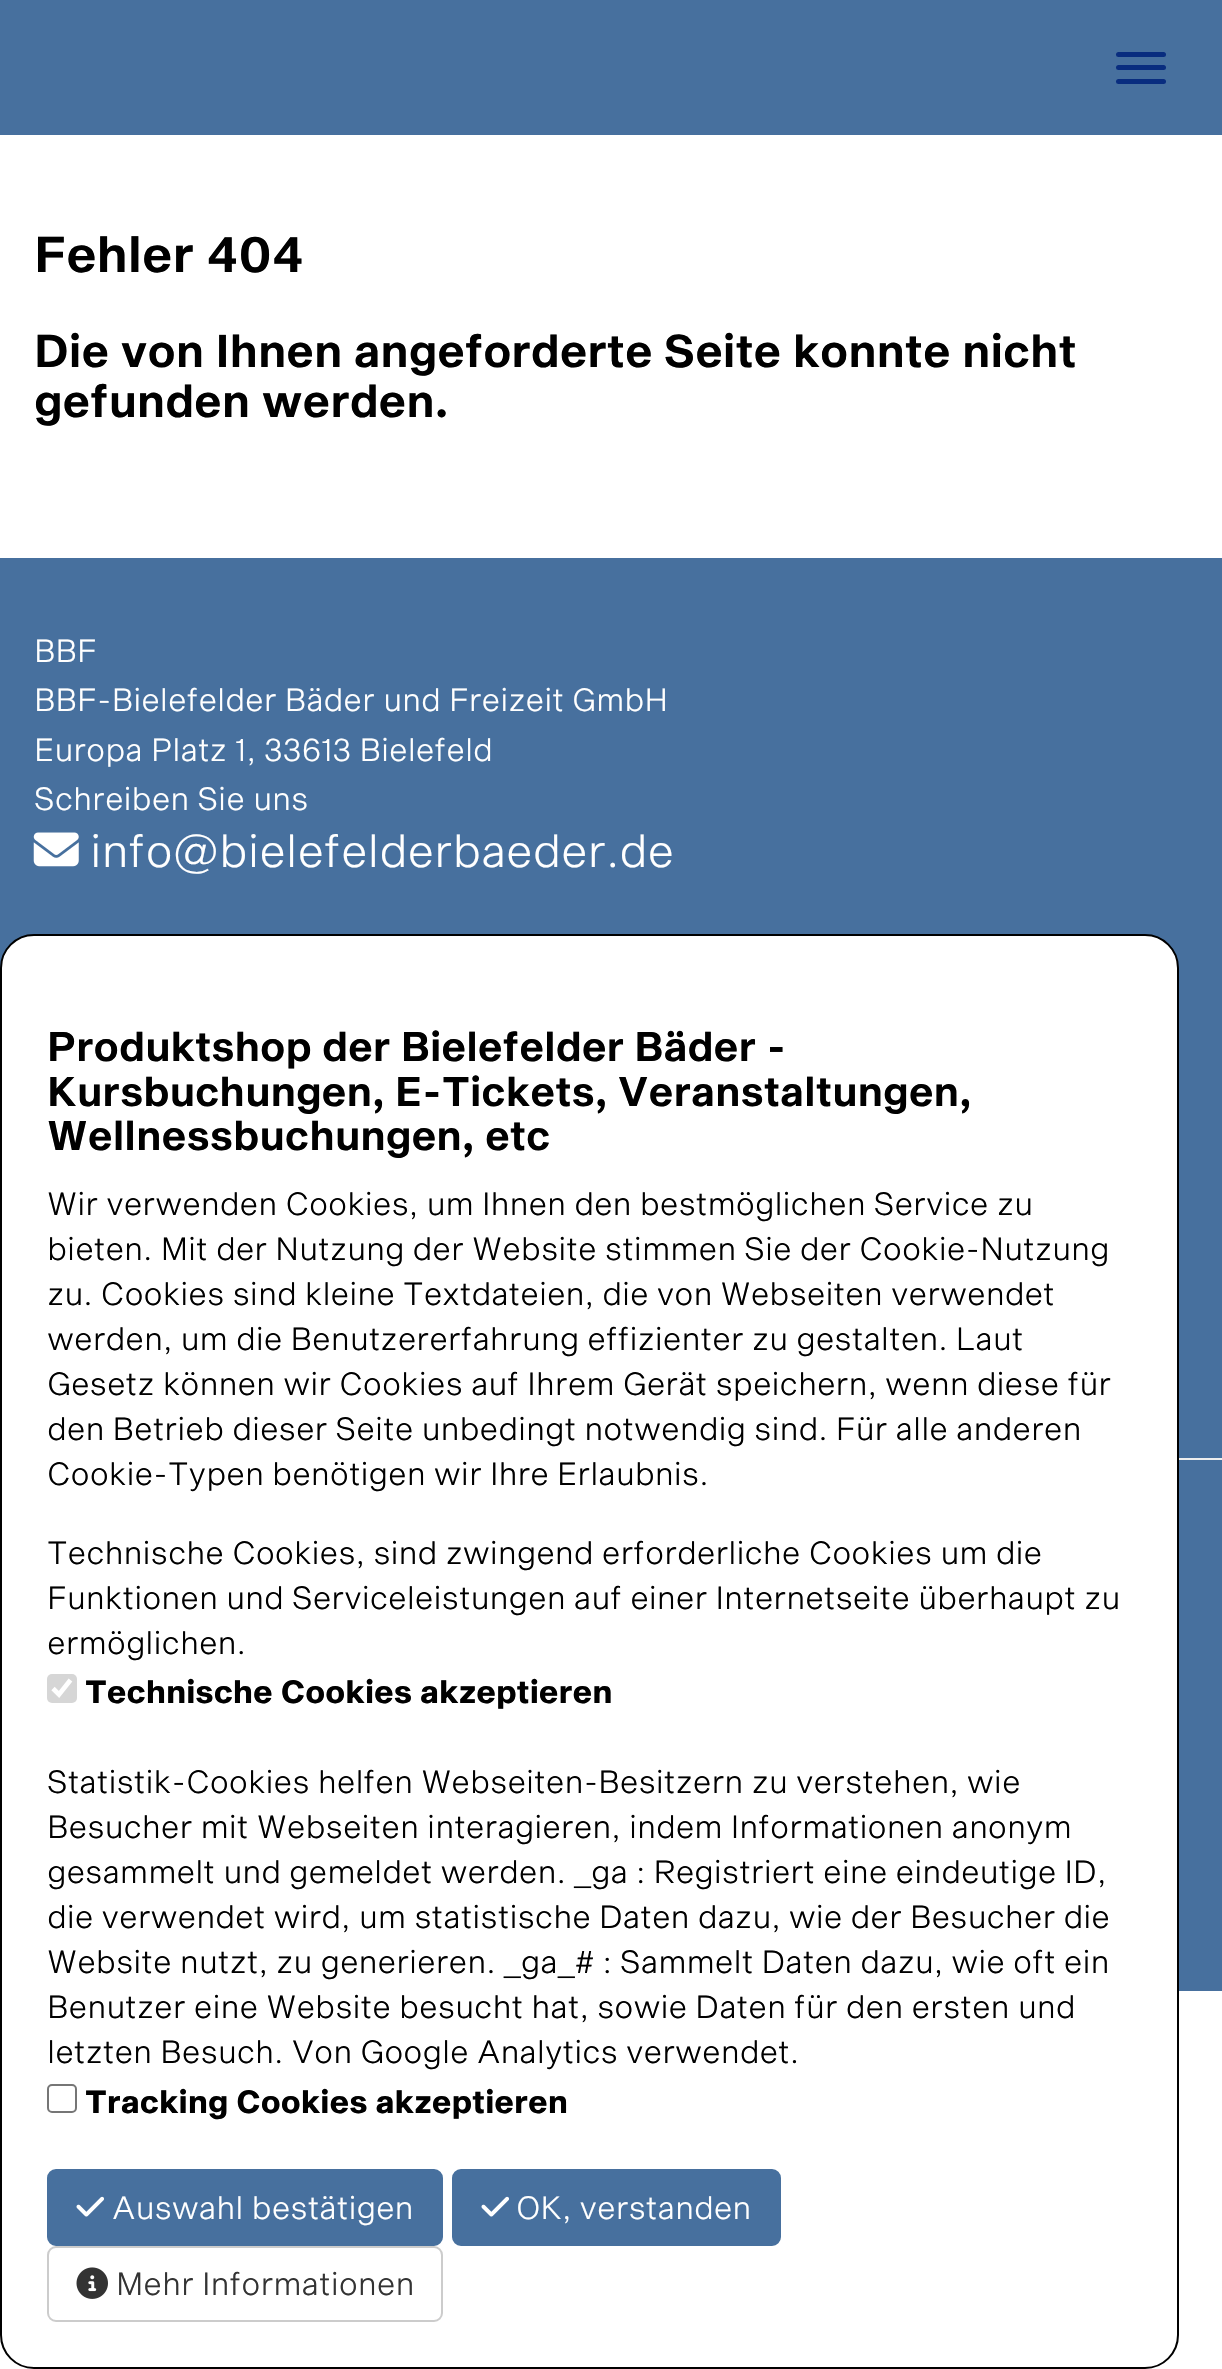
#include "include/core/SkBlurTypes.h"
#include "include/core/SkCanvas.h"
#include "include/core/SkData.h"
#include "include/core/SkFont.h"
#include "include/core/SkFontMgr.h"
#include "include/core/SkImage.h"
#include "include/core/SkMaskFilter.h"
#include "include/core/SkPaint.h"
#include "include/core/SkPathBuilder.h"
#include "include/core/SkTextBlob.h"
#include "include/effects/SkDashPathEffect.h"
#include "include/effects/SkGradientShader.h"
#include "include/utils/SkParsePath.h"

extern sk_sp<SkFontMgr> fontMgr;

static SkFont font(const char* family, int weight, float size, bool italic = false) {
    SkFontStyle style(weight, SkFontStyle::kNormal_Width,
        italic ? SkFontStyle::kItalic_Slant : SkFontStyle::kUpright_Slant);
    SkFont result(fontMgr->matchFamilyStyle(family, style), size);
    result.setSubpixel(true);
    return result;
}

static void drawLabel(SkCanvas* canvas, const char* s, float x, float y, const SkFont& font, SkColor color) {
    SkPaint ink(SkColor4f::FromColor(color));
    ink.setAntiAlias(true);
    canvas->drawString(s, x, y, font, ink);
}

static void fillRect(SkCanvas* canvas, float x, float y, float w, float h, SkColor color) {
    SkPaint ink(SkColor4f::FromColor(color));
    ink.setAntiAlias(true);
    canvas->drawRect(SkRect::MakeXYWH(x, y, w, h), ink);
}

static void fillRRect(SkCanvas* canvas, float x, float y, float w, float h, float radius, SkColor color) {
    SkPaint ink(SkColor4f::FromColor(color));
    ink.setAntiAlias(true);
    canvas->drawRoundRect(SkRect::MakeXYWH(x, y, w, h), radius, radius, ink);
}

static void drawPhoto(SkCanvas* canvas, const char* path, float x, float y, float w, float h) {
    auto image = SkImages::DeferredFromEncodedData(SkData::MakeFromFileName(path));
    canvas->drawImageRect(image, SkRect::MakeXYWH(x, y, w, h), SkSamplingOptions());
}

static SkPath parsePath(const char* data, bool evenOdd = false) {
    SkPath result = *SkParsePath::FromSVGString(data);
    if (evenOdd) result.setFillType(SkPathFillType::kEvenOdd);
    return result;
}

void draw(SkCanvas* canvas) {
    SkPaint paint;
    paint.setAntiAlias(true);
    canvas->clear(0xFFFFFFFF);
    fillRect(canvas, 0, 0, 1222, 135, 0xFF47709E);
    fillRRect(canvas, 1116, 52, 50, 5, 2.5f, 0xFF092D7F);
    fillRRect(canvas, 1116, 65, 50, 5, 2.5f, 0xFF092D7F);
    fillRRect(canvas, 1116, 79, 50, 5, 2.5f, 0xFF092D7F);
    SkFont font1 = font("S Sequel", 100, 49.5f);
    drawLabel(canvas, "Fehler 404", 34, 272, font1, 0xFF000000);
    SkFont font2 = font("S Sequel", 100, 45);
    drawLabel(canvas, "Die von Ihnen angeforderte Seite konnte nicht", 34, 367, font2, 0xFF000000);
    drawLabel(canvas, "gefunden werden.", 34, 417, font2, 0xFF000000);
    fillRect(canvas, 0, 558, 1222, 1433, 0xFF47709E);
    SkFont font3 = font("S Sequel", 300, 31.5f);
    drawLabel(canvas, "BBF", 34, 662, font3, 0xFFFFFFFF);
    drawLabel(canvas, "BBF-Bielefelder Bäder und Freizeit GmbH", 34, 711, font3, 0xFFFFFFFF);
    drawLabel(canvas, "Europa Platz 1, 33613 Bielefeld", 34, 761, font3, 0xFFFFFFFF);
    drawLabel(canvas, "Schreiben Sie uns", 34, 810, font3, 0xFFFFFFFF);
    drawPhoto(canvas, "assets/img1.png", 33, 832, 46, 35);
    SkFont font4 = font("S Sequel", 300, 45);
    drawLabel(canvas, "info@bielefelderbaeder.de", 90, 867, font4, 0xFFFFFFFF);
    fillRect(canvas, 1179, 1458, 43, 2, 0xFFEEEEEE);
    paint.setColor(0xFFFFFFFF);
    canvas->drawRoundRect(SkRect::MakeXYWH(1, 935, 1177, 1433), 33, 33, paint);
    paint.setStroke(true);
    paint.setStrokeWidth(2);
    paint.setColor(0xFF000000);
    canvas->drawRoundRect(SkRect::MakeXYWH(1, 935, 1177, 1433), 33, 33, paint);
    SkFont font5 = font("S Sequel", 100, 40.5f);
    drawLabel(canvas, "Produktshop der Bielefelder Bäder -", 47, 1061, font5, 0xFF000000);
    drawLabel(canvas, "Kursbuchungen, E-Tickets, Veranstaltungen,", 47, 1106, font5, 0xFF000000);
    drawLabel(canvas, "Wellnessbuchungen, etc", 47, 1150, font5, 0xFF000000);
    drawLabel(canvas, "Wir verwenden Cookies, um Ihnen den bestmöglichen Service zu", 47, 1215, font3, 0xFF000000);
    drawLabel(canvas, "bieten. Mit der Nutzung der Website stimmen Sie der Cookie-Nutzung", 47, 1260, font3, 0xFF000000);
    drawLabel(canvas, "zu. Cookies sind kleine Textdateien, die von Webseiten verwendet", 47, 1305, font3, 0xFF000000);
    drawLabel(canvas, "werden, um die Benutzererfahrung effizienter zu gestalten. Laut", 47, 1350, font3, 0xFF000000);
    drawLabel(canvas, "Gesetz können wir Cookies auf Ihrem Gerät speichern, wenn diese für", 47, 1395, font3, 0xFF000000);
    drawLabel(canvas, "den Betrieb dieser Seite unbedingt notwendig sind. Für alle anderen", 47, 1440, font3, 0xFF000000);
    drawLabel(canvas, "Cookie-Typen benötigen wir Ihre Erlaubnis.", 47, 1485, font3, 0xFF000000);
    drawLabel(canvas, "Technische Cookies, sind zwingend erforderliche Cookies um die", 47, 1564, font3, 0xFF000000);
    drawLabel(canvas, "Funktionen und Serviceleistungen auf einer Internetseite überhaupt zu", 47, 1609, font3, 0xFF000000);
    drawLabel(canvas, "ermöglichen.", 47, 1654, font3, 0xFF000000);
    fillRRect(canvas, 47, 1674, 30, 29, 5, 0xFFD6D6D6);
    paint.setStrokeWidth(4.7f);
    paint.setColor(0xFFFFFFFF);
    canvas->drawPath(parsePath("M53 1688.5L59 1694.5L70.5 1680"), paint);
    SkFont font6 = font("S Sequel", 700, 31.5f);
    drawLabel(canvas, "Technische Cookies akzeptieren", 85, 1703, font6, 0xFF000000);
    drawLabel(canvas, "Statistik-Cookies helfen Webseiten-Besitzern zu verstehen, wie", 47, 1793, font3, 0xFF000000);
    drawLabel(canvas, "Besucher mit Webseiten interagieren, indem Informationen anonym", 47, 1838, font3, 0xFF000000);
    drawLabel(canvas, "gesammelt und gemeldet werden. _ga : Registriert eine eindeutige ID,", 47, 1883, font3, 0xFF000000);
    drawLabel(canvas, "die verwendet wird, um statistische Daten dazu, wie der Besucher die", 47, 1928, font3, 0xFF000000);
    drawLabel(canvas, "Website nutzt, zu generieren. _ga_# : Sammelt Daten dazu, wie oft ein", 47, 1973, font3, 0xFF000000);
    drawLabel(canvas, "Benutzer eine Website besucht hat, sowie Daten für den ersten und", 47, 2018, font3, 0xFF000000);
    drawLabel(canvas, "letzten Besuch. Von Google Analytics verwendet.", 47, 2063, font3, 0xFF000000);
    paint.setStrokeWidth(2);
    paint.setColor(0xFF767676);
    canvas->drawRoundRect(SkRect::MakeXYWH(48, 2085, 28, 27), 4, 4, paint);
    drawLabel(canvas, "Tracking Cookies akzeptieren", 85, 2113, font6, 0xFF000000);
    paint.setStroke(false);
    paint.setColor(0xFF47709E);
    canvas->drawRoundRect(SkRect::MakeXYWH(48, 2170, 394, 75), 8, 8, paint);
    paint.setStroke(true);
    canvas->drawRoundRect(SkRect::MakeXYWH(48, 2170, 394, 75), 8, 8, paint);
    drawPhoto(canvas, "assets/img2.png", 76, 2196, 28, 21);
    drawLabel(canvas, "Auswahl bestätigen", 112, 2219, font3, 0xFFFFFFFF);
    paint.setStroke(false);
    canvas->drawRoundRect(SkRect::MakeXYWH(453, 2170, 327, 75), 8, 8, paint);
    paint.setStroke(true);
    canvas->drawRoundRect(SkRect::MakeXYWH(453, 2170, 327, 75), 8, 8, paint);
    drawPhoto(canvas, "assets/img2.png", 481, 2196, 28, 21);
    drawLabel(canvas, "OK, verstanden", 516, 2219, font3, 0xFFFFFFFF);
    paint.setColor(0xFFCCCCCC);
    canvas->drawRoundRect(SkRect::MakeXYWH(48, 2247, 394, 74), 8, 8, paint);
    drawPhoto(canvas, "assets/img3.png", 76, 2267, 32, 32);
    drawLabel(canvas, "Mehr Informationen", 116, 2295, font3, 0xFF333333);
}
